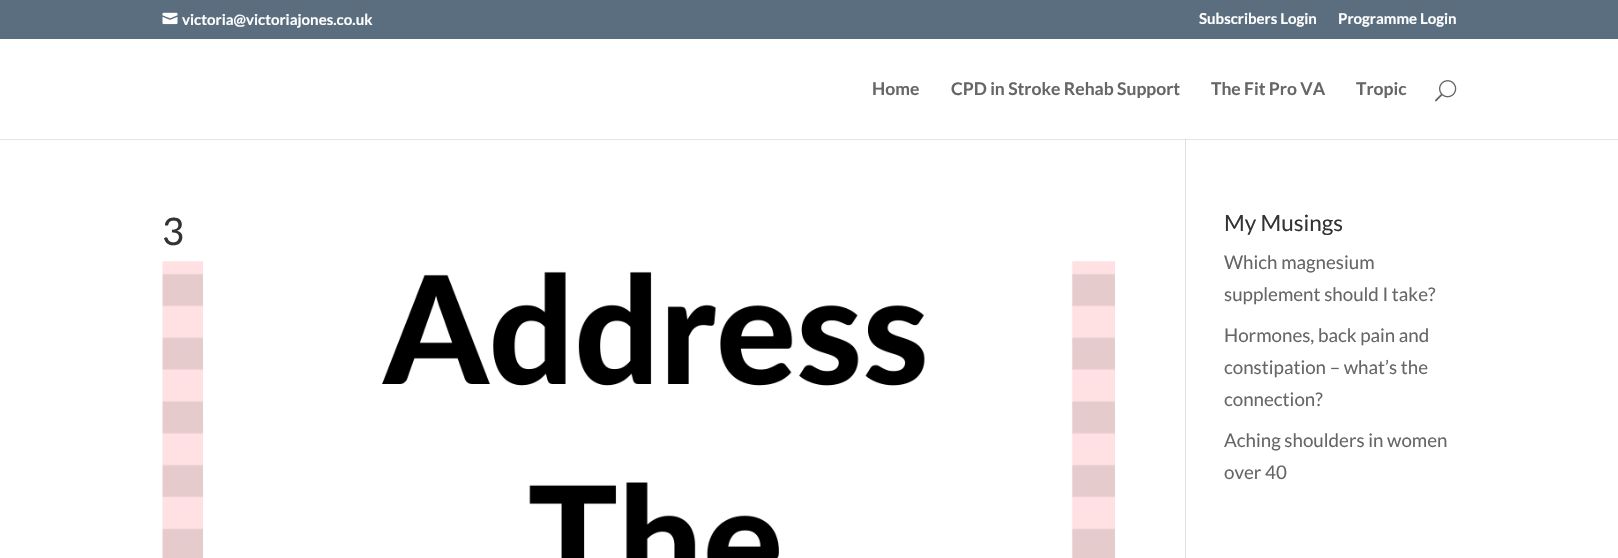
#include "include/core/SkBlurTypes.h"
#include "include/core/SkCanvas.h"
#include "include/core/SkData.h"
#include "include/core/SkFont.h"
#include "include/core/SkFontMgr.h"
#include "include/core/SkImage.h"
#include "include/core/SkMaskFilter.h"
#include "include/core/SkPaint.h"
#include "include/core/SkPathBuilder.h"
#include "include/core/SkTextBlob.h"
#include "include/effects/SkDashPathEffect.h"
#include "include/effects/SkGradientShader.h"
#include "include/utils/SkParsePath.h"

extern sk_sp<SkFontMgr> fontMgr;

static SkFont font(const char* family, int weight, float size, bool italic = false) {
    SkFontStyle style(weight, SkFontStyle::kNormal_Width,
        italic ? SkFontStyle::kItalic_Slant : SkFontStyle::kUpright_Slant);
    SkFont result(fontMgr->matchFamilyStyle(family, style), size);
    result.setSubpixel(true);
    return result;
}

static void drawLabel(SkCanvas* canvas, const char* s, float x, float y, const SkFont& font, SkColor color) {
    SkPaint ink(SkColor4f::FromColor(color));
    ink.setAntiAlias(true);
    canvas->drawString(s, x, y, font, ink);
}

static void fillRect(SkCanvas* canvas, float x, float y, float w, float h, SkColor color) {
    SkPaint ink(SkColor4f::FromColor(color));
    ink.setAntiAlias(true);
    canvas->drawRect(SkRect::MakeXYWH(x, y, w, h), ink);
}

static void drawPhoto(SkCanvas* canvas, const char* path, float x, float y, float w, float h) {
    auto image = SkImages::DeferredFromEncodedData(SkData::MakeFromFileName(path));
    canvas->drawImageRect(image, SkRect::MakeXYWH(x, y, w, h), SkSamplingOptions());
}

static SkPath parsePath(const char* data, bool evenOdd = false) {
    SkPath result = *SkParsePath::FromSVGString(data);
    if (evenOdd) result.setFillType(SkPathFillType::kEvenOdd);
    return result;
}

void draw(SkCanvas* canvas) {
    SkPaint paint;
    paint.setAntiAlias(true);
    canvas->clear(0xFF5A6E7F);
    drawPhoto(canvas, "assets/img1.png", 162, 12, 16, 13);
    SkFont font1 = font("Lato", 700, 15);
    drawLabel(canvas, "victoria@victoriajones.co.uk", 182, 25, font1, 0xFFFFFFFF);
    drawLabel(canvas, "Subscribers Login", 1199, 24, font1, 0xFFFFFFFF);
    drawLabel(canvas, "Programme Login", 1338, 24, font1, 0xFFFFFFFF);
    fillRect(canvas, 0, 39, 1618, 519, 0xFFFFFFFF);
    fillRect(canvas, 1185, 139, 1, 419, 0xFFE2E2E2);
    paint.setColor(0x1A000000);
    canvas->drawPath(parsePath("M0 139V140H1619V40V139Z"), paint);
    SkFont font2 = font("Lato", 700, 17.5f);
    drawLabel(canvas, "Home", 872, 95, font2, 0xFF666666);
    drawLabel(canvas, "CPD in Stroke Rehab Support", 951, 95, font2, 0xFF666666);
    drawLabel(canvas, "The Fit Pro VA", 1211, 95, font2, 0xFF666666);
    drawLabel(canvas, "Tropic", 1356, 95, font2, 0xFF666666);
    drawPhoto(canvas, "assets/img2.png", 1435, 80, 22, 22);
    SkFont font3 = font("Lato", 400, 38);
    drawLabel(canvas, "3", 162, 245, font3, 0xFF333333);
    drawPhoto(canvas, "assets/img3.png", 162, 261, 953, 297);
    SkFont font4 = font("Lato", 400, 22.5f);
    drawLabel(canvas, "My Musings", 1224, 231, font4, 0xFF333333);
    SkFont font5 = font("Lato", 400, 18.75f);
    drawLabel(canvas, "Which magnesium", 1224, 269, font5, 0xFF666666);
    drawLabel(canvas, "supplement should I take?", 1224, 301, font5, 0xFF666666);
    drawLabel(canvas, "Hormones, back pain and", 1224, 342, font5, 0xFF666666);
    drawLabel(canvas, "constipation – what’s the", 1224, 374, font5, 0xFF666666);
    drawLabel(canvas, "connection?", 1224, 406, font5, 0xFF666666);
    drawLabel(canvas, "Aching shoulders in women", 1224, 447, font5, 0xFF666666);
    drawLabel(canvas, "over 40", 1224, 479, font5, 0xFF666666);
}
